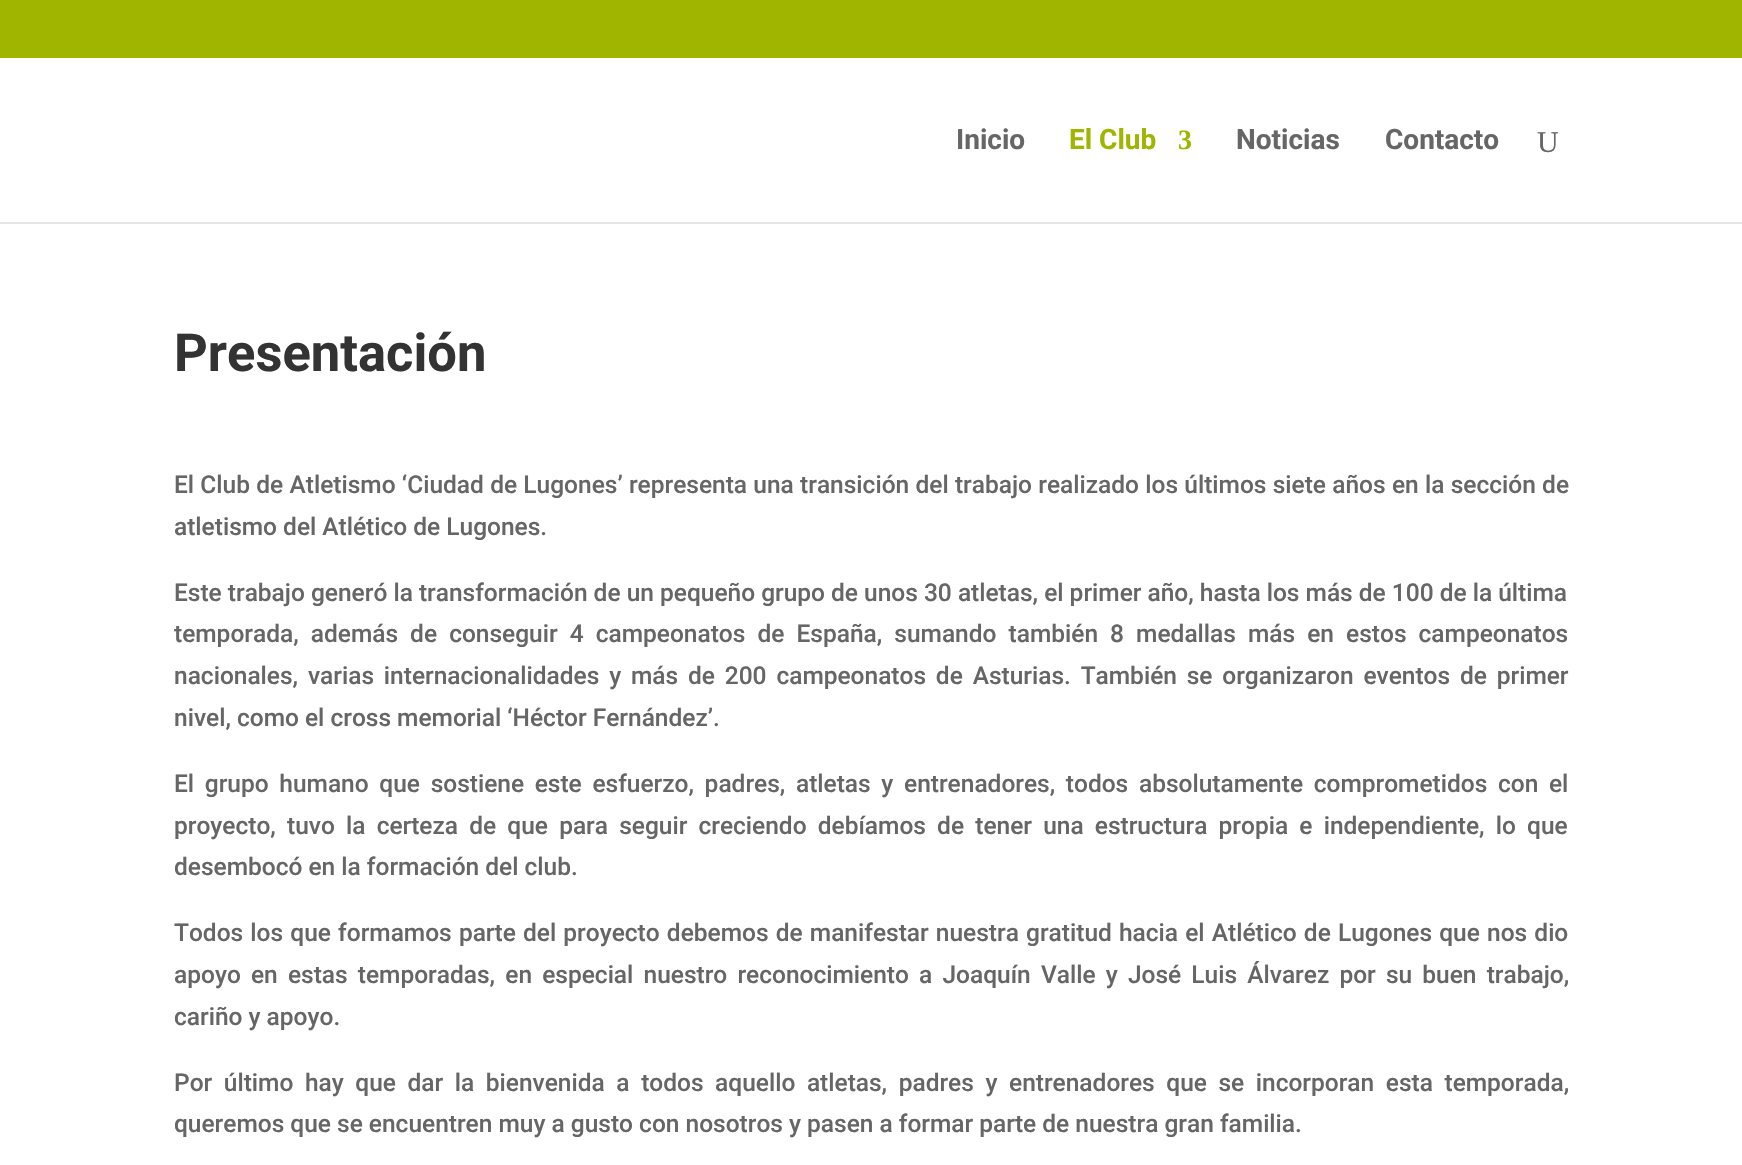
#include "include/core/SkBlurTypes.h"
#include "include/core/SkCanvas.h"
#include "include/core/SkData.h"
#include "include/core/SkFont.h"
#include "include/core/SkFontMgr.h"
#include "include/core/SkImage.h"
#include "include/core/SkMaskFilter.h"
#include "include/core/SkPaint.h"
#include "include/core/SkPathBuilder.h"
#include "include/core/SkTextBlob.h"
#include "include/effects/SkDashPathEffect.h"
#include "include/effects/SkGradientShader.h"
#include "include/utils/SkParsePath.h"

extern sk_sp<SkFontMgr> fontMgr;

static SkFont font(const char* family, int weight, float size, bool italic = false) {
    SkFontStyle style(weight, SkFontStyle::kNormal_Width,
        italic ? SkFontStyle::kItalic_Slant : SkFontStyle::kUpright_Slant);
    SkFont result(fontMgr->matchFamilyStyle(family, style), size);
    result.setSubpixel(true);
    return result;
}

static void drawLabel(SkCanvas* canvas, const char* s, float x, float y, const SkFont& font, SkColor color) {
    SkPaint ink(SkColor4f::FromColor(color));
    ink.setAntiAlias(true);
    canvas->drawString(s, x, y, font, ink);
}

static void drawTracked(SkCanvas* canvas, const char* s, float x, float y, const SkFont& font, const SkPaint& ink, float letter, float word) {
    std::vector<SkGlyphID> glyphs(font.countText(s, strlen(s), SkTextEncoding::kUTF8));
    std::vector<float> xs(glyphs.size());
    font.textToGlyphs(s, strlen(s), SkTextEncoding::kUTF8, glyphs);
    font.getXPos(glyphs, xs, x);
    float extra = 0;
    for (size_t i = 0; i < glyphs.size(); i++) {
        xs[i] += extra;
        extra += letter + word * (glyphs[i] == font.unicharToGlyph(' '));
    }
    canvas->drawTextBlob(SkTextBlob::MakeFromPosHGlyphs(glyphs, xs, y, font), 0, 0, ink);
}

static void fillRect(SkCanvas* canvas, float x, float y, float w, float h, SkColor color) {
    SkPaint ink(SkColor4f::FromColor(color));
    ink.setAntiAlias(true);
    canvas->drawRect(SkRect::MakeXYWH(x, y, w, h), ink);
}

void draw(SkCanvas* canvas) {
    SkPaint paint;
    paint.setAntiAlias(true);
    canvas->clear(0xFFFFFFFF);
    fillRect(canvas, 0, 0, 1742, 58, 0xFFA0B500);
    fillRect(canvas, 0, 222, 1742, 2, 0xFFE6E6E6);
    SkFont font1 = font("Roboto", 700, 28);
    drawLabel(canvas, "Inicio", 956, 149, font1, 0xFF666666);
    drawLabel(canvas, "El Club", 1069, 149, font1, 0xFFA0B500);
    SkFont font2 = font("Liberation Serif", 700, 28);
    drawLabel(canvas, "3", 1178, 149, font2, 0xFFA0B500);
    drawLabel(canvas, "Noticias", 1236, 149, font1, 0xFF666666);
    drawLabel(canvas, "Contacto", 1385, 149, font1, 0xFF666666);
    SkFont font3 = font("Liberation Serif", 400, 30);
    drawLabel(canvas, "U", 1537, 152, font3, 0xFF666666);
    SkFont font4 = font("Roboto", 700, 52.5f);
    drawLabel(canvas, "Presentación", 174, 371, font4, 0xFF333333);
    SkFont font5 = font("Roboto", 500, 24.5f);
    paint.setColor(0xFF666666);
    drawTracked(canvas, "El Club de Atletismo ‘Ciudad de Lugones’ representa una transición del trabajo realizado los últimos siete años en la sección de", 174, 493, font5, paint, 0, 0.2f);
    drawLabel(canvas, "atletismo del Atlético de Lugones.", 174, 535, font5, 0xFF666666);
    drawLabel(canvas, "Este trabajo generó la transformación de un pequeño grupo de unos 30 atletas, el primer año, hasta los más de 100 de la última", 174, 601, font5, 0xFF666666);
    drawTracked(canvas, "temporada, además de conseguir 4 campeonatos de España, sumando también 8 medallas más en estos campeonatos", 174, 642, font5, paint, 0, 6);
    drawTracked(canvas, "nacionales, varias internacionalidades y más de 200 campeonatos de Asturias. También se organizaron eventos de primer", 174, 684, font5, paint, 0, 3.75f);
    drawLabel(canvas, "nivel, como el cross memorial ‘Héctor Fernández’.", 174, 726, font5, 0xFF666666);
    drawTracked(canvas, "El grupo humano que sostiene este esfuerzo, padres, atletas y entrenadores, todos absolutamente comprometidos con el", 174, 792, font5, paint, 0, 4.6f);
    drawTracked(canvas, "proyecto, tuvo la certeza de que para seguir creciendo debíamos de tener una estructura propia e independiente, lo que", 174, 834, font5, paint, 0, 5.1f);
    drawLabel(canvas, "desembocó en la formación del club.", 174, 875, font5, 0xFF666666);
    drawTracked(canvas, "Todos los que formamos parte del proyecto debemos de manifestar nuestra gratitud hacia el Atlético de Lugones que nos dio", 174, 941, font5, paint, 0, 1.1f);
    drawTracked(canvas, "apoyo en estas temporadas, en especial nuestro reconocimiento a Joaquín Valle y José Luis Álvarez por su buen trabajo,", 174, 983, font5, paint, 0, 4.1f);
    drawLabel(canvas, "cariño y apoyo.", 174, 1025, font5, 0xFF666666);
    drawTracked(canvas, "Por último hay que dar la bienvenida a todos aquello atletas, padres y entrenadores que se incorporan esta temporada,", 174, 1091, font5, paint, 0, 5.5f);
    drawLabel(canvas, "queremos que se encuentren muy a gusto con nosotros y pasen a formar parte de nuestra gran familia.", 174, 1132, font5, 0xFF666666);
}
